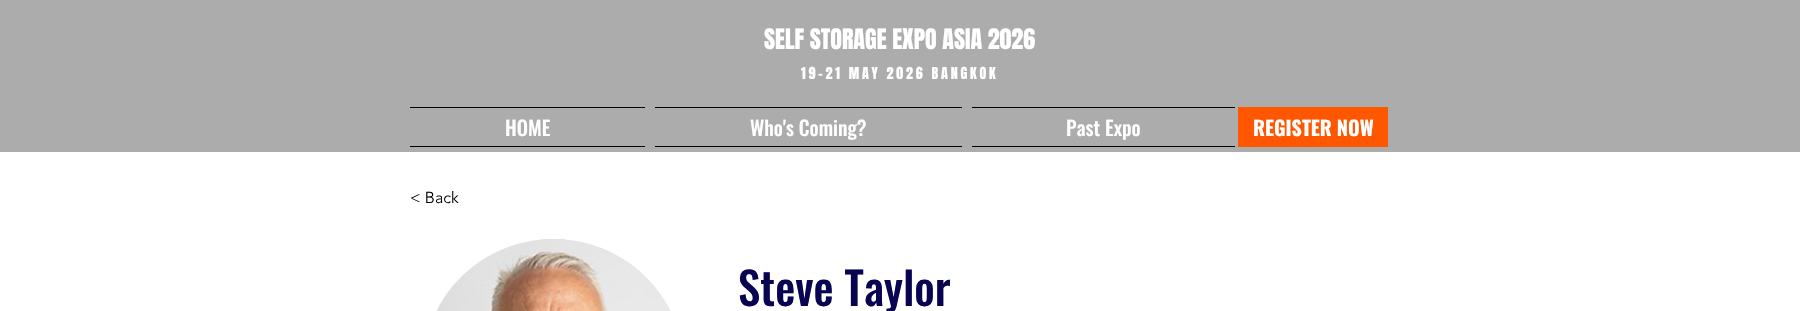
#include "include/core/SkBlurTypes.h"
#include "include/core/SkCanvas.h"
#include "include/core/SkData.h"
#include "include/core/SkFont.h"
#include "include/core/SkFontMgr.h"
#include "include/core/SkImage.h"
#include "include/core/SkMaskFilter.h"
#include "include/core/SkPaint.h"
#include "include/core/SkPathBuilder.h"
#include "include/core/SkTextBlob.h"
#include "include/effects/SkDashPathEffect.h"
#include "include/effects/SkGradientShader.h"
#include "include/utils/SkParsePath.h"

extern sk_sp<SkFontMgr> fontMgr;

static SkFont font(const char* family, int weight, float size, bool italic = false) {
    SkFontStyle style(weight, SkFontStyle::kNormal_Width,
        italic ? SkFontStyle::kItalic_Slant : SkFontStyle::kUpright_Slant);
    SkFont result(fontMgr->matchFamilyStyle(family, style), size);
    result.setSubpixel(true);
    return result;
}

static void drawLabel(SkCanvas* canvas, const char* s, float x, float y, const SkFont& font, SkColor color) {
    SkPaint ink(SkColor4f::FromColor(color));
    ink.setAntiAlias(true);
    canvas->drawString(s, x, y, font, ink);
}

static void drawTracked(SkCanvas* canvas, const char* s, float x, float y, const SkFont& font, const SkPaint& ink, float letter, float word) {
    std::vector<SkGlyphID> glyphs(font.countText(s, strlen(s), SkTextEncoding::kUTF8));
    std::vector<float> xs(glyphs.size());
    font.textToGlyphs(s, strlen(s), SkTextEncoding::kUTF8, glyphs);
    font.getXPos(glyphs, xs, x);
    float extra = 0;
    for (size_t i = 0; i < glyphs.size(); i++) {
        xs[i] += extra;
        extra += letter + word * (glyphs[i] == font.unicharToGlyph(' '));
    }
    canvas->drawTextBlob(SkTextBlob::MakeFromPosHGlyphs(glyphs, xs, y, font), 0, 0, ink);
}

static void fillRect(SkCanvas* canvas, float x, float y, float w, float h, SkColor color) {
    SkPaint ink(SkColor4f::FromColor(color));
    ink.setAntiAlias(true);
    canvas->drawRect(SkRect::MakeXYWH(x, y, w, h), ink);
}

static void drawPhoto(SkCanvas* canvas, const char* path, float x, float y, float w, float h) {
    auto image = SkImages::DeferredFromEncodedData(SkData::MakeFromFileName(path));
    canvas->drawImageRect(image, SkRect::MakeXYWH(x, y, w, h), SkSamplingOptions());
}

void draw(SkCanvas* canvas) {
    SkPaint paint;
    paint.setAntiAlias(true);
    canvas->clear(0xFFFFFFFF);
    fillRect(canvas, 0, 0, 1800, 152, 0xFFACACAC);
    SkFont font1 = font("Anton", 400, 24);
    drawLabel(canvas, "SELF STORAGE EXPO ASIA 2026", 764, 49, font1, 0xFFFFFFFF);
    SkFont font2 = font("Anton", 400, 14);
    paint.setColor(0xFFFFFFFF);
    drawTracked(canvas, "19-21 MAY 2026 BANGKOK", 801, 79, font2, paint, 2.8f, 0);
    fillRect(canvas, 410, 107, 235, 1, 0xFF000000);
    fillRect(canvas, 410, 146, 235, 1, 0xFF000000);
    SkFont font3 = font("Oswald", 500, 20);
    drawLabel(canvas, "HOME", 505, 136, font3, 0xFFFFFFFF);
    fillRect(canvas, 655, 107, 307, 1, 0xFF000000);
    fillRect(canvas, 655, 146, 307, 1, 0xFF000000);
    drawLabel(canvas, "Who's Coming?", 750, 136, font3, 0xFFFFFFFF);
    fillRect(canvas, 972, 107, 263, 1, 0xFF000000);
    fillRect(canvas, 972, 146, 263, 1, 0xFF000000);
    drawLabel(canvas, "Past Expo", 1066, 136, font3, 0xFFFFFFFF);
    fillRect(canvas, 1238, 107, 150, 40, 0xFFFF5700);
    SkFont font4 = font("Oswald", 700, 20);
    drawLabel(canvas, "REGISTER NOW", 1253, 136, font4, 0xFFFFFFFF);
    SkFont font5 = font("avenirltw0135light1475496", 300, 16);
    drawLabel(canvas, "< Back", 410, 203, font5, 0xFF000000);
    drawPhoto(canvas, "assets/img1.png", 436, 239, 235, 72);
    SkFont font6 = font("Oswald", 500, 45);
    drawLabel(canvas, "Steve Taylor", 738, 306, font6, 0xFF080451);
}
